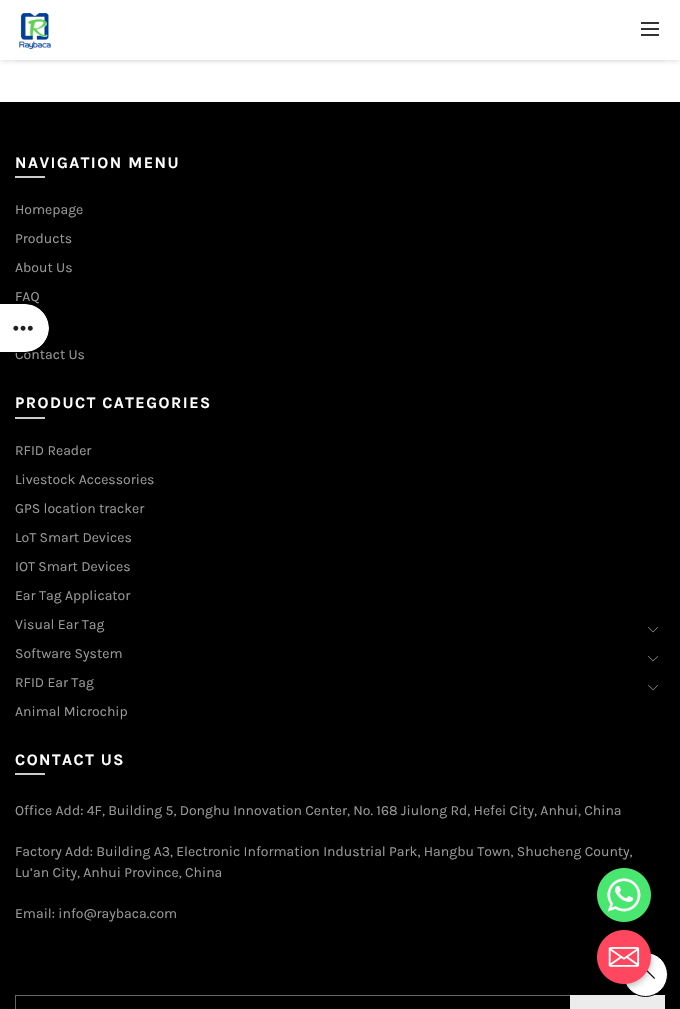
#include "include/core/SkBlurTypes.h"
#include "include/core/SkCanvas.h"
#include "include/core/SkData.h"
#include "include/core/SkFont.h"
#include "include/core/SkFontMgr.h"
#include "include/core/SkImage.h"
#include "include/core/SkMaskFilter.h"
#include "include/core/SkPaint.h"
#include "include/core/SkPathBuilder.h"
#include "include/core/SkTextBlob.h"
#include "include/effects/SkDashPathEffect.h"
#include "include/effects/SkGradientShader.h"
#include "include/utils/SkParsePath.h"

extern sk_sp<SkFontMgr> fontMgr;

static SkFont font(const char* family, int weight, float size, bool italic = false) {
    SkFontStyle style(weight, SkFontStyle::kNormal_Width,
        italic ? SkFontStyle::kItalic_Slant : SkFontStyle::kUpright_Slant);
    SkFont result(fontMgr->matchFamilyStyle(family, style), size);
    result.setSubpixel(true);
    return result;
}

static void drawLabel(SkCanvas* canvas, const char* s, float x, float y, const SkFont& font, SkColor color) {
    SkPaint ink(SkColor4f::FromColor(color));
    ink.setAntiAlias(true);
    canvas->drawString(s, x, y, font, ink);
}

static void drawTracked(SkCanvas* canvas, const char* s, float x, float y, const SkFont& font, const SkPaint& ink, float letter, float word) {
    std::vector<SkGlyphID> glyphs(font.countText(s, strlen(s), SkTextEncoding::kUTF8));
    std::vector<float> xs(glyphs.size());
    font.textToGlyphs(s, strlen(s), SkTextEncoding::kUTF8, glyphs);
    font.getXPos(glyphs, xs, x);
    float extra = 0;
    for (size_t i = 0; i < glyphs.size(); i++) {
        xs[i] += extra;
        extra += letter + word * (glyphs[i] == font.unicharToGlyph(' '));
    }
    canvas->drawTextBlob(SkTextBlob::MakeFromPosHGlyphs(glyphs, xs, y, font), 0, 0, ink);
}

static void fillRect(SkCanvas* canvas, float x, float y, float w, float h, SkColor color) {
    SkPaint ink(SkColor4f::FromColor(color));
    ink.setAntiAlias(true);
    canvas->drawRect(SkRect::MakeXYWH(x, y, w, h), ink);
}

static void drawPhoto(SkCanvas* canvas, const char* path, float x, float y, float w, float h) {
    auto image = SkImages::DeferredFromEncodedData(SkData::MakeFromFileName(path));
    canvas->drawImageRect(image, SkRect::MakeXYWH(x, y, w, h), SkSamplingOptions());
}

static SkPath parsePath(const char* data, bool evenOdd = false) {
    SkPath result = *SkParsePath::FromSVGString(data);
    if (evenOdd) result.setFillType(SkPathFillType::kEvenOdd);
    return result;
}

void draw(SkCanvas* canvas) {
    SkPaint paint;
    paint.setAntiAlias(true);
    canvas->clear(0xFFFFFFFF);
    fillRect(canvas, 15, 60, 650, 2, 0xFFF7F7F7);
    paint.setColor(0x80BEBEBE);
    paint.setMaskFilter(SkMaskFilter::MakeBlur(kNormal_SkBlurStyle, 2.5f));
    canvas->drawRect(SkRect::MakeXYWH(0, 1, 680, 60), paint);
    paint.setMaskFilter(nullptr);
    fillRect(canvas, 0, 0, 680, 60, 0xFFFFFFFF);
    drawPhoto(canvas, "assets/img1.png", 19, 13, 32, 37);
    fillRect(canvas, 641, 28, 18, 2, 0xFF333333);
    fillRect(canvas, 641, 22, 18, 2, 0xFF333333);
    fillRect(canvas, 641, 34, 18, 2, 0xFF333333);
    fillRect(canvas, 0, 102, 680, 907, 0xFF000000);
    SkFont font1 = font("Karla", 700, 16);
    paint.setColor(0xFFFFFFFF);
    drawTracked(canvas, "NAVIGATION MENU", 15, 168, font1, paint, 1.5f, 0);
    fillRect(canvas, 15, 176, 30, 2, 0xFFCCCCCC);
    SkFont font2 = font("Karla", 400, 14);
    drawLabel(canvas, "Homepage", 15, 214, font2, 0xFF999999);
    drawLabel(canvas, "Products", 15, 243, font2, 0xFF999999);
    drawLabel(canvas, "About Us", 15, 272, font2, 0xFF999999);
    drawLabel(canvas, "FAQ", 15, 301, font2, 0xFF999999);
    drawLabel(canvas, "Contact Us", 15, 359, font2, 0xFF999999);
    drawTracked(canvas, "PRODUCT CATEGORIES", 15, 408, font1, paint, 1.5f, 0);
    fillRect(canvas, 15, 417, 30, 2, 0xFFCCCCCC);
    drawLabel(canvas, "RFID Reader", 15, 455, font2, 0xFF999999);
    drawLabel(canvas, "Livestock Accessories", 15, 484, font2, 0xFF999999);
    drawLabel(canvas, "GPS location tracker", 15, 513, font2, 0xFF999999);
    drawLabel(canvas, "LoT Smart Devices", 15, 542, font2, 0xFF999999);
    drawLabel(canvas, "IOT Smart Devices", 15, 571, font2, 0xFF999999);
    drawLabel(canvas, "Ear Tag Applicator", 15, 600, font2, 0xFF999999);
    drawLabel(canvas, "Visual Ear Tag", 15, 629, font2, 0xFF999999);
    drawPhoto(canvas, "assets/img2.png", 648, 627, 10, 6);
    drawLabel(canvas, "Software System", 15, 658, font2, 0xFF999999);
    drawPhoto(canvas, "assets/img2.png", 648, 656, 10, 6);
    drawLabel(canvas, "RFID Ear Tag", 15, 687, font2, 0xFF999999);
    drawPhoto(canvas, "assets/img2.png", 648, 685, 10, 6);
    drawLabel(canvas, "Animal Microchip", 15, 716, font2, 0xFF999999);
    drawTracked(canvas, "CONTACT US", 15, 765, font1, paint, 1.5f, 0);
    fillRect(canvas, 15, 773, 30, 2, 0xFFCCCCCC);
    drawLabel(canvas, "Office Add: 4F, Building 5, Donghu Innovation Center, No. 168 Jiulong Rd, Hefei City, Anhui, China", 15, 815, font2, 0xFF999999);
    drawLabel(canvas, "Factory Add: Building A3, Electronic Information Industrial Park, Hangbu Town, Shucheng County,", 15, 856, font2, 0xFF999999);
    drawLabel(canvas, "Lu’an City, Anhui Province, China", 15, 877, font2, 0xFF999999);
    drawLabel(canvas, "Email: info@raybaca.com", 15, 918, font2, 0xFF999999);
    paint.setStroke(true);
    paint.setStrokeWidth(1);
    paint.setColor(0xFF666666);
    canvas->drawRect(SkRect::MakeXYWH(15.5f, 995.5f, 649, 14), paint);
    fillRect(canvas, 570, 995, 95, 14, 0xFFECECEC);
    paint.setStroke(false);
    paint.setColor(0xFFFFFFFF);
    canvas->drawPath(parsePath("M0 304H25C38.5 304 49 314.5 49 328C49 341.5 38.5 352 25 352H0Z"), paint);
    paint.setColor(0xFF000000);
    canvas->drawPath(parsePath("M0 303H25C39 303 50 314 50 328C50 342 39 353 25 353H0ZM0 304H25C38 304 49 315 49 328C49 341 38 352 25 352H0Z", true), paint);
    drawPhoto(canvas, "assets/img3.png", 13, 325, 20, 6);
    drawPhoto(canvas, "assets/img4.png", 597, 868, 54, 54);
    paint.setColor(0xFFFFFFFF);
    canvas->drawCircle(645.5f, 974.5f, 22, paint);
    paint.setStroke(true);
    paint.setColor(0xFF000000);
    canvas->drawCircle(645.5f, 974.5f, 22, paint);
    drawPhoto(canvas, "assets/img6.png", 646, 970, 9, 9);
    paint.setStroke(false);
    paint.setColor(0x40000000);
    paint.setMaskFilter(SkMaskFilter::MakeBlur(kNormal_SkBlurStyle, 3));
    canvas->drawRoundRect(SkRect::MakeXYWH(597, 933, 54, 54), 27, 27, paint);
    paint.setMaskFilter(nullptr);
    drawPhoto(canvas, "assets/img5.png", 597, 930, 54, 54);
}
